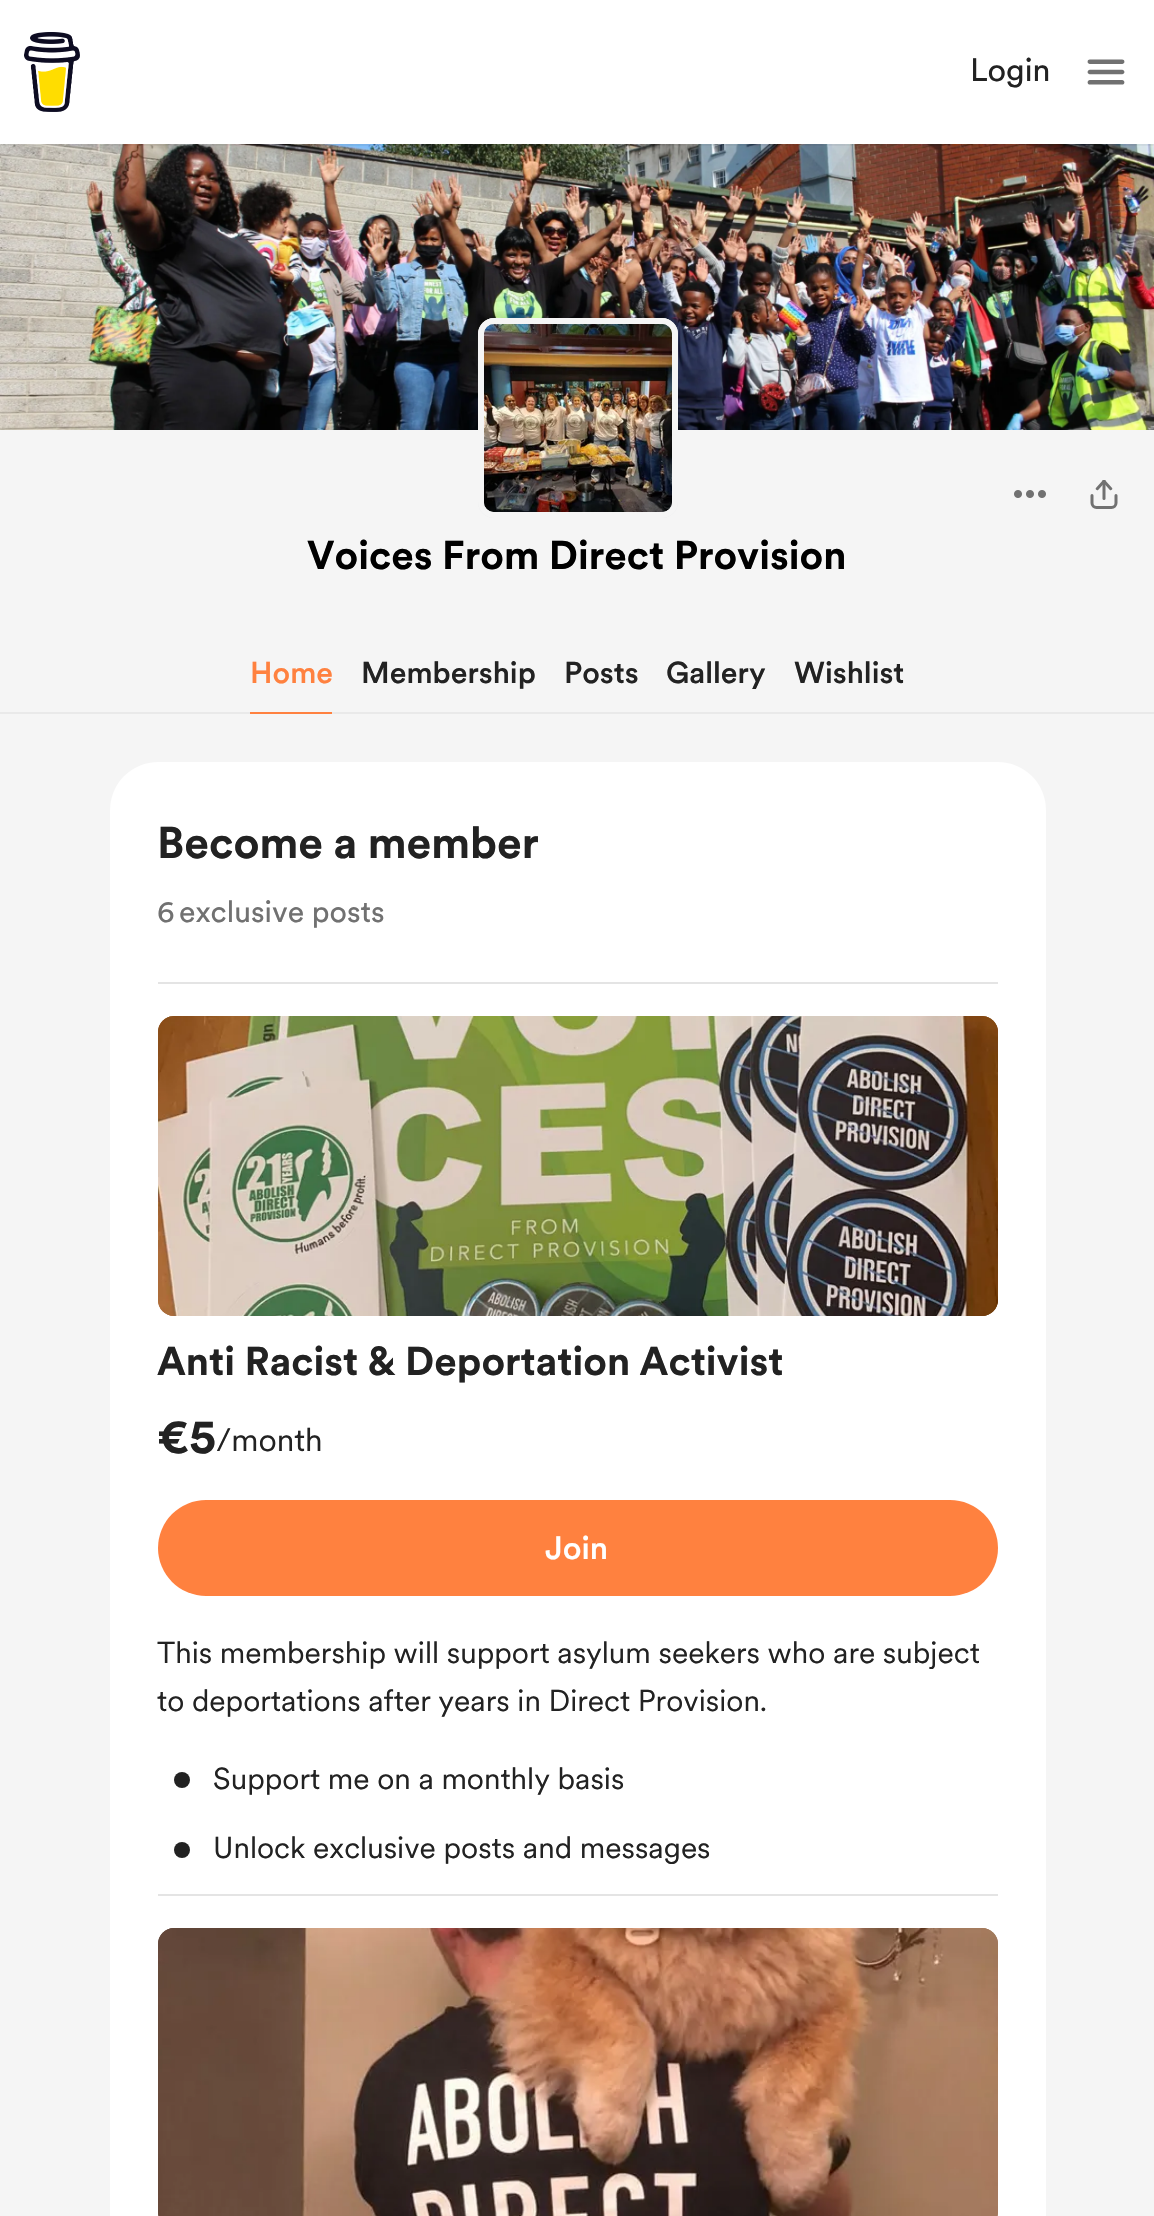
#include "include/core/SkBlurTypes.h"
#include "include/core/SkCanvas.h"
#include "include/core/SkData.h"
#include "include/core/SkFont.h"
#include "include/core/SkFontMgr.h"
#include "include/core/SkImage.h"
#include "include/core/SkMaskFilter.h"
#include "include/core/SkPaint.h"
#include "include/core/SkPathBuilder.h"
#include "include/core/SkTextBlob.h"
#include "include/effects/SkDashPathEffect.h"
#include "include/effects/SkGradientShader.h"
#include "include/utils/SkParsePath.h"

extern sk_sp<SkFontMgr> fontMgr;

static SkFont font(const char* family, int weight, float size, bool italic = false) {
    SkFontStyle style(weight, SkFontStyle::kNormal_Width,
        italic ? SkFontStyle::kItalic_Slant : SkFontStyle::kUpright_Slant);
    SkFont result(fontMgr->matchFamilyStyle(family, style), size);
    result.setSubpixel(true);
    return result;
}

static void drawLabel(SkCanvas* canvas, const char* s, float x, float y, const SkFont& font, SkColor color) {
    SkPaint ink(SkColor4f::FromColor(color));
    ink.setAntiAlias(true);
    canvas->drawString(s, x, y, font, ink);
}

static void fillRect(SkCanvas* canvas, float x, float y, float w, float h, SkColor color) {
    SkPaint ink(SkColor4f::FromColor(color));
    ink.setAntiAlias(true);
    canvas->drawRect(SkRect::MakeXYWH(x, y, w, h), ink);
}

static void fillRRect(SkCanvas* canvas, float x, float y, float w, float h, float radius, SkColor color) {
    SkPaint ink(SkColor4f::FromColor(color));
    ink.setAntiAlias(true);
    canvas->drawRoundRect(SkRect::MakeXYWH(x, y, w, h), radius, radius, ink);
}

static void drawPhoto(SkCanvas* canvas, const char* path, float x, float y, float w, float h) {
    auto image = SkImages::DeferredFromEncodedData(SkData::MakeFromFileName(path));
    canvas->drawImageRect(image, SkRect::MakeXYWH(x, y, w, h), SkSamplingOptions());
}

void draw(SkCanvas* canvas) {
    SkPaint paint;
    paint.setAntiAlias(true);
    canvas->clear(0xFFFFFFFF);
    drawPhoto(canvas, "assets/img3.png", 0, 144, 1154, 286);
    canvas->save();
    canvas->clipRect(SkRect::MakeXYWH(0, 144, 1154, 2));
    paint.setColor(0x0F000000);
    paint.setMaskFilter(SkMaskFilter::MakeBlur(kNormal_SkBlurStyle, 1));
    canvas->drawRect(SkRect::MakeXYWH(0, 2, 1154, 144), paint);
    paint.setMaskFilter(nullptr);
    canvas->restore();
    drawPhoto(canvas, "assets/img1.png", 24, 32, 56, 80);
    SkFont font1 = font("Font", 400, 32);
    drawLabel(canvas, "Login", 970, 81, font1, 0xFF222222);
    drawPhoto(canvas, "assets/img2.png", 1087, 59, 38, 26);
    fillRect(canvas, 0, 430, 1154, 1786, 0xFFF5F5F5);
    drawPhoto(canvas, "assets/img4.png", 1014, 490, 32, 8);
    drawPhoto(canvas, "assets/img5.png", 1090, 480, 28, 29);
    drawPhoto(canvas, "assets/img6.png", 478, 318, 200, 200);
    paint.setStroke(true);
    paint.setStrokeWidth(6);
    paint.setColor(0xFFF5F5F5);
    canvas->drawRoundRect(SkRect::MakeXYWH(481, 321, 194, 194), 13, 13, paint);
    drawPhoto(canvas, "assets/img7.png", 484, 324, 188, 188);
    SkFont font2 = font("Font", 700, 40);
    drawLabel(canvas, "Voices From Direct Provision", 307, 569, font2, 0xFF000000);
    SkFont font3 = font("Font", 500, 30);
    drawLabel(canvas, "Home", 250, 683, font3, 0xFFFF813F);
    fillRect(canvas, 0, 712, 1154, 2, 0xFFE9E9E9);
    fillRect(canvas, 250, 712, 82, 2, 0xFFFF813F);
    drawLabel(canvas, "Membership", 361, 683, font3, 0xFF222222);
    drawLabel(canvas, "Posts", 564, 683, font3, 0xFF222222);
    drawLabel(canvas, "Gallery", 666, 683, font3, 0xFF222222);
    drawLabel(canvas, "Wishlist", 794, 683, font3, 0xFF222222);
    fillRRect(canvas, 110, 762, 936, 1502, 48, 0xFFFFFFFF);
    SkFont font4 = font("Font", 700, 44);
    drawLabel(canvas, "Become a member", 157, 858, font4, 0xFF222222);
    SkFont font5 = font("Font", 400, 30);
    drawLabel(canvas, "6", 157, 922, font5, 0xFF717171);
    drawLabel(canvas, "exclusive posts", 179, 922, font5, 0xFF717171);
    fillRect(canvas, 158, 982, 840, 2, 0xFFE4E4E4);
    fillRect(canvas, 158, 1894, 840, 2, 0xFFE4E4E4);
    drawPhoto(canvas, "assets/img8.png", 158, 1016, 840, 300);
    drawPhoto(canvas, "assets/img9.png", 158, 1016, 840, 300);
    drawLabel(canvas, "Anti Racist & Deportation Activist", 157, 1375, font2, 0xFF222222);
    SkFont font6 = font("Font", 700, 48);
    drawLabel(canvas, "€5", 157, 1453, font6, 0xFF222222);
    SkFont font7 = font("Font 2", 400, 32);
    drawLabel(canvas, "/month", 216, 1451, font7, 0xFF222222);
    fillRRect(canvas, 158, 1500, 840, 96, 48, 0xFFFF813F);
    SkFont font8 = font("Font", 500, 32);
    drawLabel(canvas, "Join", 545, 1559, font8, 0xFFFFFFFF);
    SkFont font9 = font("Font 2", 400, 30);
    drawLabel(canvas, "This membership will support asylum seekers who are subject", 157, 1663, font9, 0xFF222222);
    drawLabel(canvas, "to deportations after years in Direct Provision.", 157, 1711, font9, 0xFF222222);
    paint.setStroke(false);
    paint.setColor(0xFF222222);
    canvas->drawCircle(182, 1780, 8, paint);
    drawLabel(canvas, "Support me on a monthly basis", 213, 1789, font9, 0xFF222222);
    canvas->drawCircle(182, 1850, 8, paint);
    drawLabel(canvas, "Unlock exclusive posts and messages", 213, 1858, font9, 0xFF222222);
    drawPhoto(canvas, "assets/img10.png", 158, 1928, 840, 288);
    drawPhoto(canvas, "assets/img11.png", 158, 1928, 840, 288);
}
